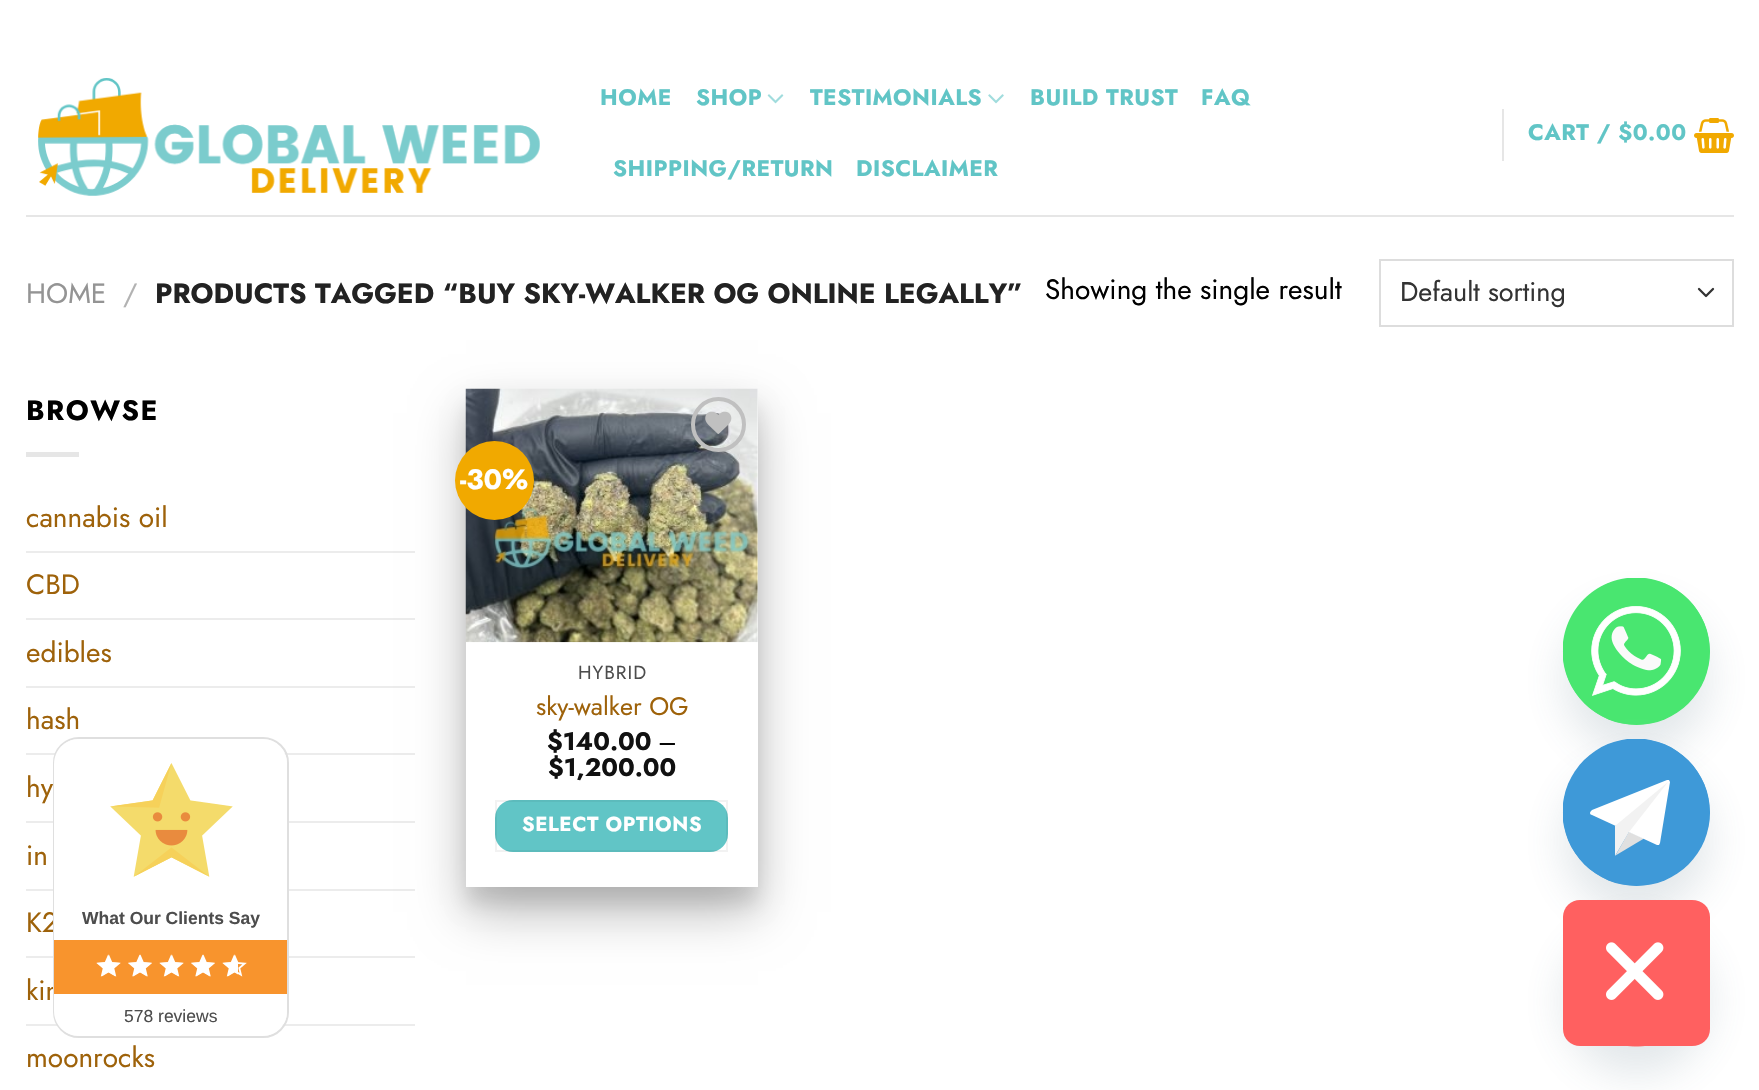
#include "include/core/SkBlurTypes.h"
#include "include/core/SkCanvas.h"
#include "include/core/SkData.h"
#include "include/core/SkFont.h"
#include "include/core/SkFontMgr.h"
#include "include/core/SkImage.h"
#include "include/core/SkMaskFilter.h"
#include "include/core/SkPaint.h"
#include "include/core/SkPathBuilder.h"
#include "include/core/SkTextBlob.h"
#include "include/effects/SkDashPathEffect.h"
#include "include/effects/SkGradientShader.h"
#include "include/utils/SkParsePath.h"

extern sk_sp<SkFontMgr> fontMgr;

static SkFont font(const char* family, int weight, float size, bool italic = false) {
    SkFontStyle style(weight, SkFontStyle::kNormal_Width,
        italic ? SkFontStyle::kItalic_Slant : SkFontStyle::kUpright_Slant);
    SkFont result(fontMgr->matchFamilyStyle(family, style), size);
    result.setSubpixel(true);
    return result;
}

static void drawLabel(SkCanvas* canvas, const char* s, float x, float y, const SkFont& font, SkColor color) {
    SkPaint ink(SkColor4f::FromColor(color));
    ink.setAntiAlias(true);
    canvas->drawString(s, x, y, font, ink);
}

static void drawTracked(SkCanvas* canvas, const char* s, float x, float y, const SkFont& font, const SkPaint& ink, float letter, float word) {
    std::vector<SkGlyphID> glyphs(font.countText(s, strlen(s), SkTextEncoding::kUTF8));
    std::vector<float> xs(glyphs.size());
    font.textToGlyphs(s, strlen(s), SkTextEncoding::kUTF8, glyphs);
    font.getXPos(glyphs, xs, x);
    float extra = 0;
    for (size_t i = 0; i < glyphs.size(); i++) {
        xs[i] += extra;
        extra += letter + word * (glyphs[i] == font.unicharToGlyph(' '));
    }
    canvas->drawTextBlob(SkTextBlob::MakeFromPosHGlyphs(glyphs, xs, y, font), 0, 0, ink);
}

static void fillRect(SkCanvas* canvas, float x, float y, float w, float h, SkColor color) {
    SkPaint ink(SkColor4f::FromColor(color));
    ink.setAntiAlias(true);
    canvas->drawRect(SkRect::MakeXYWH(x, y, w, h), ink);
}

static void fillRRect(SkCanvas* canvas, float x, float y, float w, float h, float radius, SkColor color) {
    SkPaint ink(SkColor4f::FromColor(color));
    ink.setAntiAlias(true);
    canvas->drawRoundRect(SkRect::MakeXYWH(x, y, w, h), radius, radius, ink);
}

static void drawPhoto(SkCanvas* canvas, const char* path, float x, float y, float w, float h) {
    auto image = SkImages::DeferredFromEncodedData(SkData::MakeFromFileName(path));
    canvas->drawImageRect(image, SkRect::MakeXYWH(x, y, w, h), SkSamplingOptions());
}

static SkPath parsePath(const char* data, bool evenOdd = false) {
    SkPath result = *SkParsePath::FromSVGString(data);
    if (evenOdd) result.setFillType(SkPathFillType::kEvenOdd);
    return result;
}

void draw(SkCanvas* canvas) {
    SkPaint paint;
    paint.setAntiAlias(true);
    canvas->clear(0xFFFFFFFF);
    drawPhoto(canvas, "assets/img1.png", 38, 78, 502, 118);
    SkFont font1 = font("Jost", 700, 22.5f);
    paint.setColor(0xFF61C5C6);
    drawTracked(canvas, "HOME", 600, 105, font1, paint, 0.5f, 0);
    drawTracked(canvas, "SHOP", 696, 105, font1, paint, 0.5f, 0);
    drawPhoto(canvas, "assets/img2.png", 767, 94, 17, 10);
    drawTracked(canvas, "TESTIMONIALS", 810, 105, font1, paint, 0.5f, 0);
    drawPhoto(canvas, "assets/img3.png", 988, 94, 16, 10);
    drawTracked(canvas, "BUILD TRUST", 1030, 105, font1, paint, 0.5f, 0);
    drawTracked(canvas, "FAQ", 1201, 105, font1, paint, 0.5f, 0);
    drawTracked(canvas, "SHIPPING/RETURN", 613, 176, font1, paint, 0.5f, 0);
    drawTracked(canvas, "DISCLAIMER", 856, 176, font1, paint, 0.5f, 0);
    fillRect(canvas, 1502, 109, 2, 52, 0xFFE6E6E6);
    drawTracked(canvas, "CART / $0.00", 1528, 140, font1, paint, 0.5f, 0);
    drawPhoto(canvas, "assets/img4.png", 1694, 118, 40, 35);
    fillRect(canvas, 26, 215, 1708, 2, 0xFFE6E6E6);
    SkFont font2 = font("Jost", 400, 28);
    drawLabel(canvas, "HOME", 26, 303, font2, 0xFF949494);
    drawLabel(canvas, "/", 123, 303, font2, 0xFFB2B2B2);
    SkFont font3 = font("Jost", 700, 28);
    drawLabel(canvas, "PRODUCTS TAGGED “BUY SKY-WALKER OG ONLINE LEGALLY”", 155, 303, font3, 0xFF222222);
    drawLabel(canvas, "Showing the single result", 1045, 299, font2, 0xFF000000);
    paint.setStroke(true);
    paint.setStrokeWidth(2.3f);
    paint.setStrokeCap(SkPaint::kRound_Cap);
    paint.setStrokeJoin(SkPaint::kRound_Join);
    paint.setColor(0xFF333333);
    canvas->drawPath(parsePath("M1699 289L1706 296L1713 289"), paint);
    paint.setStrokeWidth(2);
    paint.setStrokeCap(SkPaint::kButt_Cap);
    paint.setStrokeJoin(SkPaint::kMiter_Join);
    paint.setColor(0xFFDDDDDD);
    canvas->drawRect(SkRect::MakeXYWH(1380, 260, 353, 66), paint);
    SkFont font4 = font("Jost", 400, 27);
    drawLabel(canvas, "Default sorting", 1400, 301, font4, 0xFF333333);
    paint.setStroke(false);
    paint.setColor(0xFF000000);
    drawTracked(canvas, "BROWSE", 26, 420, font3, paint, 1.5f, 0);
    fillRect(canvas, 26, 452, 53, 5, 0xFFE6E6E6);
    drawLabel(canvas, "cannabis oil", 26, 527, font2, 0xFF9E620A);
    fillRect(canvas, 26, 551, 389, 2, 0xFFECECEC);
    drawLabel(canvas, "CBD", 26, 594, font2, 0xFF9E620A);
    fillRect(canvas, 26, 618, 389, 2, 0xFFECECEC);
    drawLabel(canvas, "edibles", 26, 662, font2, 0xFF9E620A);
    fillRect(canvas, 26, 686, 389, 2, 0xFFECECEC);
    drawLabel(canvas, "hash", 26, 729, font2, 0xFF9E620A);
    fillRect(canvas, 26, 753, 389, 2, 0xFFECECEC);
    drawLabel(canvas, "hy", 26, 797, font2, 0xFF9E620A);
    fillRect(canvas, 26, 821, 389, 2, 0xFFECECEC);
    drawLabel(canvas, "in", 26, 865, font2, 0xFF9E620A);
    fillRect(canvas, 26, 889, 389, 2, 0xFFECECEC);
    drawLabel(canvas, "K2", 26, 932, font2, 0xFF9E620A);
    fillRect(canvas, 26, 956, 389, 2, 0xFFECECEC);
    drawLabel(canvas, "kin", 26, 1000, font2, 0xFF9E620A);
    fillRect(canvas, 26, 1024, 389, 2, 0xFFECECEC);
    drawLabel(canvas, "moonrocks", 26, 1067, font2, 0xFF9E620A);
    paint.setColor(0x1A000000);
    paint.setMaskFilter(SkMaskFilter::MakeBlur(kNormal_SkBlurStyle, 9));
    canvas->drawRect(SkRect::MakeXYWH(466, 406, 292, 499), paint);
    paint.setMaskFilter(nullptr);
    paint.setColor(0x40000000);
    paint.setMaskFilter(SkMaskFilter::MakeBlur(kNormal_SkBlurStyle, 24.5f));
    canvas->drawRect(SkRect::MakeXYWH(466, 413, 292, 499), paint);
    paint.setMaskFilter(nullptr);
    fillRect(canvas, 466, 389, 292, 498, 0xFFFFFFFF);
    drawPhoto(canvas, "assets/img5.png", 465, 388, 293, 255);
    paint.setColor(0xFFF1A900);
    canvas->drawCircle(494.5f, 480.5f, 39.5f, paint);
    drawLabel(canvas, "-30%", 460, 489, font3, 0xFFFFFFFF);
    paint.setStroke(true);
    paint.setStrokeWidth(4);
    paint.setColor(0xFFC0C0C0);
    canvas->drawCircle(718.5f, 424.5f, 25.5f, paint);
    drawPhoto(canvas, "assets/img6.png", 705, 411, 27, 23);
    SkFont font5 = font("Jost", 400, 19);
    paint.setStroke(false);
    paint.setColor(0xFF4D4D4D);
    drawTracked(canvas, "HYBRID", 578, 679, font5, paint, 1, 0);
    SkFont font6 = font("Jost", 400, 25.25f);
    drawLabel(canvas, "sky-walker OG", 536, 715, font6, 0xFF9E620A);
    SkFont font7 = font("Jost", 700, 25.25f);
    drawLabel(canvas, "$140.00", 547, 750, font7, 0xFF111111);
    drawLabel(canvas, "–", 658, 750, font6, 0xFF000000);
    drawLabel(canvas, "$1,200.00", 548, 776, font7, 0xFF111111);
    fillRRect(canvas, 495, 800, 233, 52, 18, 0xFF61C5C6);
    paint.setStroke(true);
    paint.setStrokeWidth(2);
    paint.setColor(0x0D000000);
    canvas->drawRect(SkRect::MakeXYWH(496, 801, 231, 50), paint);
    SkFont font8 = font("Jost", 700, 20.25f);
    paint.setStroke(false);
    paint.setColor(0xFFFFFFFF);
    drawTracked(canvas, "SELECT OPTIONS", 522, 831, font8, paint, 0.6f, 0);
    paint.setStroke(true);
    paint.setColor(0xFFDFDFDF);
    canvas->drawRoundRect(SkRect::MakeXYWH(54, 738, 234, 299), 25, 25, paint);
    paint.setStroke(false);
    paint.setColor(0xFFFFFFFF);
    canvas->drawPath(parsePath("M79 739H262C276 739 287 750 287 764V940H54V764C54 750 65 739 79 739Z"), paint);
    fillRect(canvas, 54, 940, 233, 54, 0xFFF8942D);
    canvas->drawPath(parsePath("M54 994H287V1011C287 1025 276 1036 262 1036H79C65 1036 54 1025 54 1011Z"), paint);
    drawPhoto(canvas, "assets/img7.png", 110, 763, 123, 114);
    SkFont font9 = font("Liberation Sans", 700, 17.5f);
    drawLabel(canvas, "What Our Clients Say", 82, 924, font9, 0xFF4D4D4D);
    drawPhoto(canvas, "assets/img9.png", 97, 954, 24, 23);
    drawPhoto(canvas, "assets/img8.png", 96, 954, 24, 23);
    drawPhoto(canvas, "assets/img10.png", 128, 954, 24, 23);
    drawPhoto(canvas, "assets/img11.png", 128, 954, 24, 23);
    drawPhoto(canvas, "assets/img9.png", 160, 954, 24, 23);
    drawPhoto(canvas, "assets/img8.png", 159, 954, 24, 23);
    drawPhoto(canvas, "assets/img10.png", 191, 954, 24, 23);
    drawPhoto(canvas, "assets/img11.png", 191, 954, 24, 23);
    drawPhoto(canvas, "assets/img9.png", 223, 954, 24, 23);
    drawPhoto(canvas, "assets/img12.png", 222, 954, 16, 23);
    SkFont font10 = font("Liberation Sans", 400, 17.5f);
    drawLabel(canvas, "578 reviews", 124, 1022, font10, 0xFF4D4D4D);
    paint.setColor(0x2949687E);
    paint.setMaskFilter(SkMaskFilter::MakeBlur(kNormal_SkBlurStyle, 21));
    canvas->drawRoundRect(SkRect::MakeXYWH(1563, 606, 147, 147), 73.5f, 73.5f, paint);
    paint.setMaskFilter(nullptr);
    paint.setColor(0xFF49E670);
    canvas->drawCircle(1636.5f, 651.5f, 73.5f, paint);
    drawPhoto(canvas, "assets/img13.png", 1563, 578, 147, 147);
    paint.setColor(0x2949687E);
    paint.setMaskFilter(SkMaskFilter::MakeBlur(kNormal_SkBlurStyle, 21));
    canvas->drawRoundRect(SkRect::MakeXYWH(1563, 767, 147, 147), 73.5f, 73.5f, paint);
    paint.setMaskFilter(nullptr);
    paint.setColor(0xFF3E99D8);
    canvas->drawCircle(1636.5f, 812.5f, 73.5f, paint);
    canvas->save();
    canvas->clipRect(SkRect::MakeXYWH(1563, 739, 147, 147));
    canvas->drawCircle(1636, 812, 73.5f, paint);
    canvas->restore();
    paint.setColor(0xFFE0E0E0);
    canvas->drawPath(parsePath("M1629 831.5L1615.5 855.5L1644 838.5Z"), paint);
    paint.setColor(0xFFFFFFFF);
    canvas->drawPath(parsePath("M1669 780C1669 780 1668 780 1667 780L1592 810C1591 811 1590 812 1590 813C1590 814 1591 815 1592 815L1657 845H1658C1658 845 1659 845 1659 845L1660 843L1670 782Z"), paint);
    paint.setColor(0xFFF2F2F2);
    canvas->drawPath(parsePath("M1668 782L1615 826V856L1629 832Z"), paint);
    paint.setColor(0x2949687E);
    paint.setMaskFilter(SkMaskFilter::MakeBlur(kNormal_SkBlurStyle, 21));
    canvas->drawRoundRect(SkRect::MakeXYWH(1563, 928, 147, 147), 73.5f, 73.5f, paint);
    paint.setMaskFilter(nullptr);
    paint.setColor(0xFFFF6060);
    canvas->drawPath(parsePath("M1692 1046H1580C1571 1046 1563 1039 1563 1029V917C1563 907 1571 900 1580 900H1692C1702 900 1710 907 1710 917V1029C1710 1039 1702 1046 1692 1046Z"), paint);
    drawPhoto(canvas, "assets/img14.png", 1606, 942, 58, 105);
}
